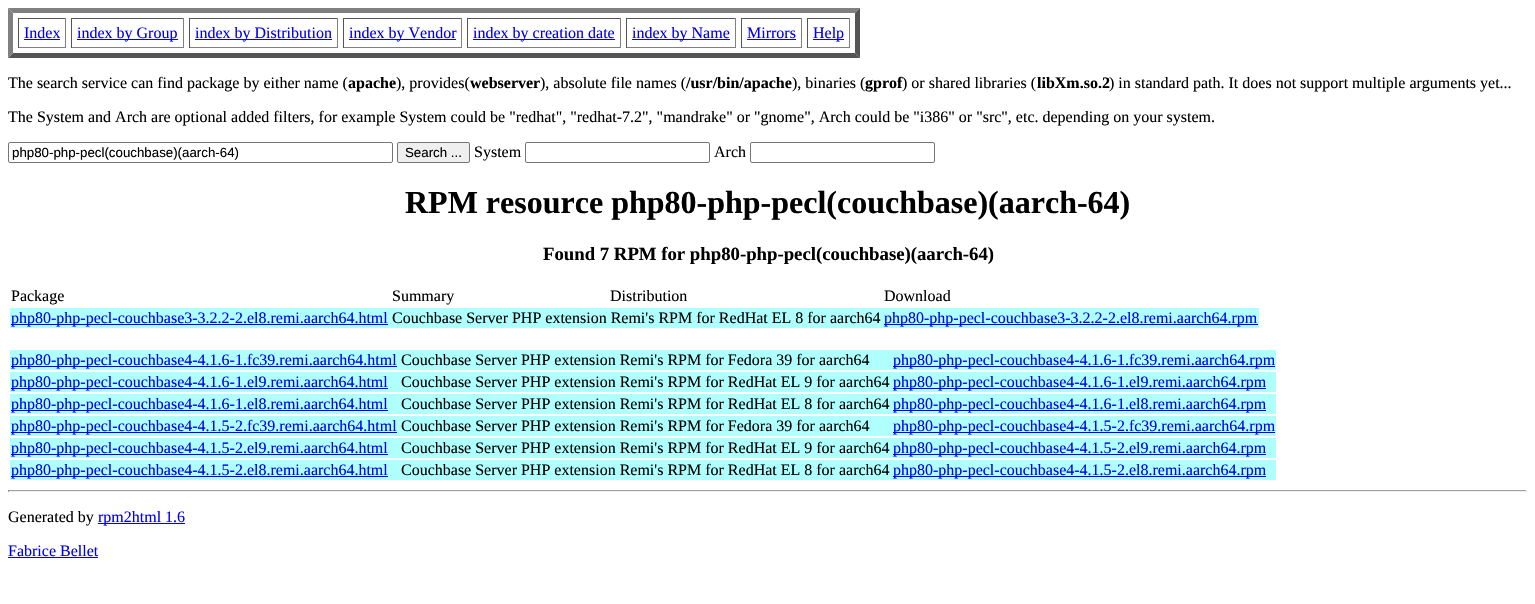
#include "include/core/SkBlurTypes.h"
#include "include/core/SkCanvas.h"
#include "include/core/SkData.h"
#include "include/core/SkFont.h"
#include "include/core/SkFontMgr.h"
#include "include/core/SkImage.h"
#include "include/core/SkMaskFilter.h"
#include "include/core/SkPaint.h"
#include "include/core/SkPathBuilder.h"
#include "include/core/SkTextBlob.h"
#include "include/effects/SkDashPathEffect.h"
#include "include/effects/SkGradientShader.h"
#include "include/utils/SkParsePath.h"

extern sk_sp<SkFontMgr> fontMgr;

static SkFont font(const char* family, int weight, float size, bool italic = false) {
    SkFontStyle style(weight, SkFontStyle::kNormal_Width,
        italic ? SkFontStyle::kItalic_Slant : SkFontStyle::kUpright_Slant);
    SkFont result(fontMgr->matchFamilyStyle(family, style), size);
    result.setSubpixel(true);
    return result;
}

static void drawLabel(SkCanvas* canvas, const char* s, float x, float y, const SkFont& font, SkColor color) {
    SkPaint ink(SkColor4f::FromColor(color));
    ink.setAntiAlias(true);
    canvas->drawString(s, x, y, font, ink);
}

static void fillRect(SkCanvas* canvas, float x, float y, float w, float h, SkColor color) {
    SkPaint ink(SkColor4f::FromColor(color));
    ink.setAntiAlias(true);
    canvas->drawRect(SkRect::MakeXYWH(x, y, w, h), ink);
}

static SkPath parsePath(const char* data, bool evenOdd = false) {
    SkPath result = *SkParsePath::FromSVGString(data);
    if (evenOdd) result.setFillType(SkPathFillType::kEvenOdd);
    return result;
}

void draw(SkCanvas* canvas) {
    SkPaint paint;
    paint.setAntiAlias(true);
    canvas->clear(0xFFFFFFFF);
    paint.setColor(0xFF808080);
    canvas->drawPath(parsePath("M8 8H860L855 13H13Z"), paint);
    paint.setColor(0xFF555555);
    canvas->drawPath(parsePath("M860 8V58L855 53V13Z"), paint);
    canvas->drawPath(parsePath("M860 58H8L13 53H855Z"), paint);
    paint.setColor(0xFF808080);
    canvas->drawPath(parsePath("M8 58V8L13 13V53Z"), paint);
    fillRect(canvas, 18, 18, 48, 1, 0xFF555555);
    fillRect(canvas, 65, 18, 1, 30, 0xFF808080);
    fillRect(canvas, 18, 47, 48, 1, 0xFF808080);
    fillRect(canvas, 18, 18, 1, 30, 0xFF555555);
    SkFont font1 = font("Liberation Serif", 400, 16);
    drawLabel(canvas, "Index", 24, 38, font1, 0xFF0000EE);
    fillRect(canvas, 24, 39, 36, 1, 0xFF0000EE);
    fillRect(canvas, 71, 18, 113, 1, 0xFF555555);
    fillRect(canvas, 183, 18, 1, 30, 0xFF808080);
    fillRect(canvas, 71, 47, 113, 1, 0xFF808080);
    fillRect(canvas, 71, 18, 1, 30, 0xFF555555);
    fillRect(canvas, 77, 39, 101, 1, 0xFF0000EE);
    drawLabel(canvas, "index by Group", 77, 38, font1, 0xFF0000EE);
    fillRect(canvas, 189, 18, 149, 1, 0xFF555555);
    fillRect(canvas, 337, 18, 1, 30, 0xFF808080);
    fillRect(canvas, 189, 47, 149, 1, 0xFF808080);
    fillRect(canvas, 189, 18, 1, 30, 0xFF555555);
    fillRect(canvas, 195, 39, 137, 1, 0xFF0000EE);
    drawLabel(canvas, "index by Distribution", 195, 38, font1, 0xFF0000EE);
    fillRect(canvas, 343, 18, 119, 1, 0xFF555555);
    fillRect(canvas, 461, 18, 1, 30, 0xFF808080);
    fillRect(canvas, 343, 47, 119, 1, 0xFF808080);
    fillRect(canvas, 343, 18, 1, 30, 0xFF555555);
    fillRect(canvas, 349, 39, 107, 1, 0xFF0000EE);
    drawLabel(canvas, "index by Vendor", 349, 38, font1, 0xFF0000EE);
    fillRect(canvas, 467, 18, 154, 1, 0xFF555555);
    fillRect(canvas, 620, 18, 1, 30, 0xFF808080);
    fillRect(canvas, 467, 47, 154, 1, 0xFF808080);
    fillRect(canvas, 467, 18, 1, 30, 0xFF555555);
    fillRect(canvas, 473, 39, 142, 1, 0xFF0000EE);
    drawLabel(canvas, "index by creation date", 473, 38, font1, 0xFF0000EE);
    fillRect(canvas, 626, 18, 110, 1, 0xFF555555);
    fillRect(canvas, 735, 18, 1, 30, 0xFF808080);
    fillRect(canvas, 626, 47, 110, 1, 0xFF808080);
    fillRect(canvas, 626, 18, 1, 30, 0xFF555555);
    fillRect(canvas, 632, 39, 98, 1, 0xFF0000EE);
    drawLabel(canvas, "index by Name", 632, 38, font1, 0xFF0000EE);
    fillRect(canvas, 741, 18, 61, 1, 0xFF555555);
    fillRect(canvas, 801, 18, 1, 30, 0xFF808080);
    fillRect(canvas, 741, 47, 61, 1, 0xFF808080);
    fillRect(canvas, 741, 18, 1, 30, 0xFF555555);
    drawLabel(canvas, "Mirrors", 747, 38, font1, 0xFF0000EE);
    fillRect(canvas, 747, 39, 49, 1, 0xFF0000EE);
    fillRect(canvas, 807, 18, 43, 1, 0xFF555555);
    fillRect(canvas, 849, 18, 1, 30, 0xFF808080);
    fillRect(canvas, 807, 47, 43, 1, 0xFF808080);
    fillRect(canvas, 807, 18, 1, 30, 0xFF555555);
    fillRect(canvas, 813, 39, 31, 1, 0xFF0000EE);
    drawLabel(canvas, "Help", 813, 38, font1, 0xFF0000EE);
    drawLabel(canvas, "The search service can find package by either name (", 8, 88, font1, 0xFF000000);
    SkFont font2 = font("Liberation Serif", 700, 16);
    drawLabel(canvas, "apache", 348, 88, font2, 0xFF000000);
    drawLabel(canvas, "), provides(", 396, 88, font1, 0xFF000000);
    drawLabel(canvas, "webserver", 470, 88, font2, 0xFF000000);
    drawLabel(canvas, "), absolute file names (", 540, 88, font1, 0xFF000000);
    drawLabel(canvas, "/usr/bin/apache", 686, 88, font2, 0xFF000000);
    drawLabel(canvas, "), binaries (", 792, 88, font1, 0xFF000000);
    drawLabel(canvas, "gprof", 865, 88, font2, 0xFF000000);
    drawLabel(canvas, ") or shared libraries (", 902, 88, font1, 0xFF000000);
    drawLabel(canvas, "libXm.so.2", 1037, 88, font2, 0xFF000000);
    drawLabel(canvas, ") in standard path. It does not support multiple arguments yet...", 1109, 88, font1, 0xFF000000);
    drawLabel(canvas, "The System and Arch are optional added filters, for example System could be \"redhat\", \"redhat-7.2\", \"mandrake\" or \"gnome\", Arch could be \"i386\" or \"src\", etc. depending on your system.", 8, 122, font1, 0xFF000000);
    paint.setStroke(true);
    paint.setStrokeWidth(1);
    paint.setColor(0xFF767676);
    canvas->drawRoundRect(SkRect::MakeXYWH(8.5f, 142.5f, 384, 20), 1.5f, 1.5f, paint);
    SkFont font3 = font("Liberation Sans", 400, 13.3f);
    drawLabel(canvas, "php80-php-pecl(couchbase)(aarch-64)", 12, 157, font3, 0xFF000000);
    paint.setStroke(false);
    paint.setColor(0xFFEFEFEF);
    canvas->drawRoundRect(SkRect::MakeXYWH(397.5f, 142.5f, 72, 20), 1.5f, 1.5f, paint);
    paint.setStroke(true);
    paint.setColor(0xFF767676);
    canvas->drawRoundRect(SkRect::MakeXYWH(397.5f, 142.5f, 72, 20), 1.5f, 1.5f, paint);
    drawLabel(canvas, "Search ...", 405, 157, font3, 0xFF000000);
    drawLabel(canvas, "System", 474, 157, font1, 0xFF000000);
    canvas->drawRoundRect(SkRect::MakeXYWH(525.5f, 142.5f, 184, 20), 1.5f, 1.5f, paint);
    drawLabel(canvas, "Arch", 714, 157, font1, 0xFF000000);
    canvas->drawRoundRect(SkRect::MakeXYWH(750.5f, 142.5f, 184, 20), 1.5f, 1.5f, paint);
    SkFont font4 = font("Liberation Serif", 700, 32);
    drawLabel(canvas, "RPM resource php80-php-pecl(couchbase)(aarch-64)", 405, 213, font4, 0xFF000000);
    SkFont font5 = font("Liberation Serif", 700, 18.75f);
    drawLabel(canvas, "Found 7 RPM for php80-php-pecl(couchbase)(aarch-64)", 543, 260, font5, 0xFF000000);
    drawLabel(canvas, "Package", 11, 301, font1, 0xFF000000);
    drawLabel(canvas, "Summary", 392, 301, font1, 0xFF000000);
    drawLabel(canvas, "Distribution", 610, 301, font1, 0xFF000000);
    drawLabel(canvas, "Download", 884, 301, font1, 0xFF000000);
    fillRect(canvas, 10, 308, 1249, 20, 0xFFB0FFFF);
    fillRect(canvas, 11, 324, 377, 1, 0xFF0000EE);
    drawLabel(canvas, "php80-php-pecl-couchbase3-3.2.2-2.el8.remi.aarch64.html", 11, 323, font1, 0xFF0000EE);
    drawLabel(canvas, "Couchbase Server PHP extension Remi's RPM for RedHat EL 8 for aarch64", 392, 323, font1, 0xFF000000);
    fillRect(canvas, 884, 324, 374, 1, 0xFF0000EE);
    drawLabel(canvas, "php80-php-pecl-couchbase3-3.2.2-2.el8.remi.aarch64.rpm", 884, 323, font1, 0xFF0000EE);
    fillRect(canvas, 10, 350, 1266, 20, 0xFFB0FFFF);
    fillRect(canvas, 11, 366, 386, 1, 0xFF0000EE);
    drawLabel(canvas, "php80-php-pecl-couchbase4-4.1.6-1.fc39.remi.aarch64.html", 11, 365, font1, 0xFF0000EE);
    drawLabel(canvas, "Couchbase Server PHP extension Remi's RPM for Fedora 39 for aarch64", 401, 365, font1, 0xFF000000);
    fillRect(canvas, 893, 366, 382, 1, 0xFF0000EE);
    drawLabel(canvas, "php80-php-pecl-couchbase4-4.1.6-1.fc39.remi.aarch64.rpm", 893, 365, font1, 0xFF0000EE);
    fillRect(canvas, 10, 372, 1266, 20, 0xFFB0FFFF);
    fillRect(canvas, 11, 388, 377, 1, 0xFF0000EE);
    drawLabel(canvas, "php80-php-pecl-couchbase4-4.1.6-1.el9.remi.aarch64.html", 11, 387, font1, 0xFF0000EE);
    drawLabel(canvas, "Couchbase Server PHP extension Remi's RPM for RedHat EL 9 for aarch64", 401, 387, font1, 0xFF000000);
    fillRect(canvas, 893, 388, 373, 1, 0xFF0000EE);
    drawLabel(canvas, "php80-php-pecl-couchbase4-4.1.6-1.el9.remi.aarch64.rpm", 893, 387, font1, 0xFF0000EE);
    fillRect(canvas, 10, 394, 1266, 20, 0xFFB0FFFF);
    fillRect(canvas, 11, 410, 377, 1, 0xFF0000EE);
    drawLabel(canvas, "php80-php-pecl-couchbase4-4.1.6-1.el8.remi.aarch64.html", 11, 409, font1, 0xFF0000EE);
    drawLabel(canvas, "Couchbase Server PHP extension Remi's RPM for RedHat EL 8 for aarch64", 401, 409, font1, 0xFF000000);
    fillRect(canvas, 893, 410, 373, 1, 0xFF0000EE);
    drawLabel(canvas, "php80-php-pecl-couchbase4-4.1.6-1.el8.remi.aarch64.rpm", 893, 409, font1, 0xFF0000EE);
    fillRect(canvas, 10, 416, 1266, 20, 0xFFB0FFFF);
    fillRect(canvas, 11, 432, 386, 1, 0xFF0000EE);
    drawLabel(canvas, "php80-php-pecl-couchbase4-4.1.5-2.fc39.remi.aarch64.html", 11, 431, font1, 0xFF0000EE);
    drawLabel(canvas, "Couchbase Server PHP extension Remi's RPM for Fedora 39 for aarch64", 401, 431, font1, 0xFF000000);
    fillRect(canvas, 893, 432, 382, 1, 0xFF0000EE);
    drawLabel(canvas, "php80-php-pecl-couchbase4-4.1.5-2.fc39.remi.aarch64.rpm", 893, 431, font1, 0xFF0000EE);
    fillRect(canvas, 10, 438, 1266, 20, 0xFFB0FFFF);
    fillRect(canvas, 11, 454, 377, 1, 0xFF0000EE);
    drawLabel(canvas, "php80-php-pecl-couchbase4-4.1.5-2.el9.remi.aarch64.html", 11, 453, font1, 0xFF0000EE);
    drawLabel(canvas, "Couchbase Server PHP extension Remi's RPM for RedHat EL 9 for aarch64", 401, 453, font1, 0xFF000000);
    fillRect(canvas, 893, 454, 373, 1, 0xFF0000EE);
    drawLabel(canvas, "php80-php-pecl-couchbase4-4.1.5-2.el9.remi.aarch64.rpm", 893, 453, font1, 0xFF0000EE);
    fillRect(canvas, 10, 460, 1266, 20, 0xFFB0FFFF);
    fillRect(canvas, 11, 476, 377, 1, 0xFF0000EE);
    drawLabel(canvas, "php80-php-pecl-couchbase4-4.1.5-2.el8.remi.aarch64.html", 11, 475, font1, 0xFF0000EE);
    drawLabel(canvas, "Couchbase Server PHP extension Remi's RPM for RedHat EL 8 for aarch64", 401, 475, font1, 0xFF000000);
    fillRect(canvas, 893, 476, 373, 1, 0xFF0000EE);
    drawLabel(canvas, "php80-php-pecl-couchbase4-4.1.5-2.el8.remi.aarch64.rpm", 893, 475, font1, 0xFF0000EE);
    fillRect(canvas, 8, 490, 1519, 1, 0xFF9F9F9F);
    fillRect(canvas, 1526, 490, 1, 2, 0xFFEEEEEE);
    fillRect(canvas, 8, 491, 1519, 1, 0xFFEEEEEE);
    fillRect(canvas, 8, 490, 1, 2, 0xFF9F9F9F);
    drawLabel(canvas, "Generated by", 8, 522, font1, 0xFF000000);
    fillRect(canvas, 98, 523, 87, 1, 0xFF0000EE);
    drawLabel(canvas, "rpm2html 1.6", 98, 522, font1, 0xFF0000EE);
    drawLabel(canvas, "Fabrice Bellet", 8, 556, font1, 0xFF0000EE);
    fillRect(canvas, 8, 557, 90, 1, 0xFF0000EE);
}
